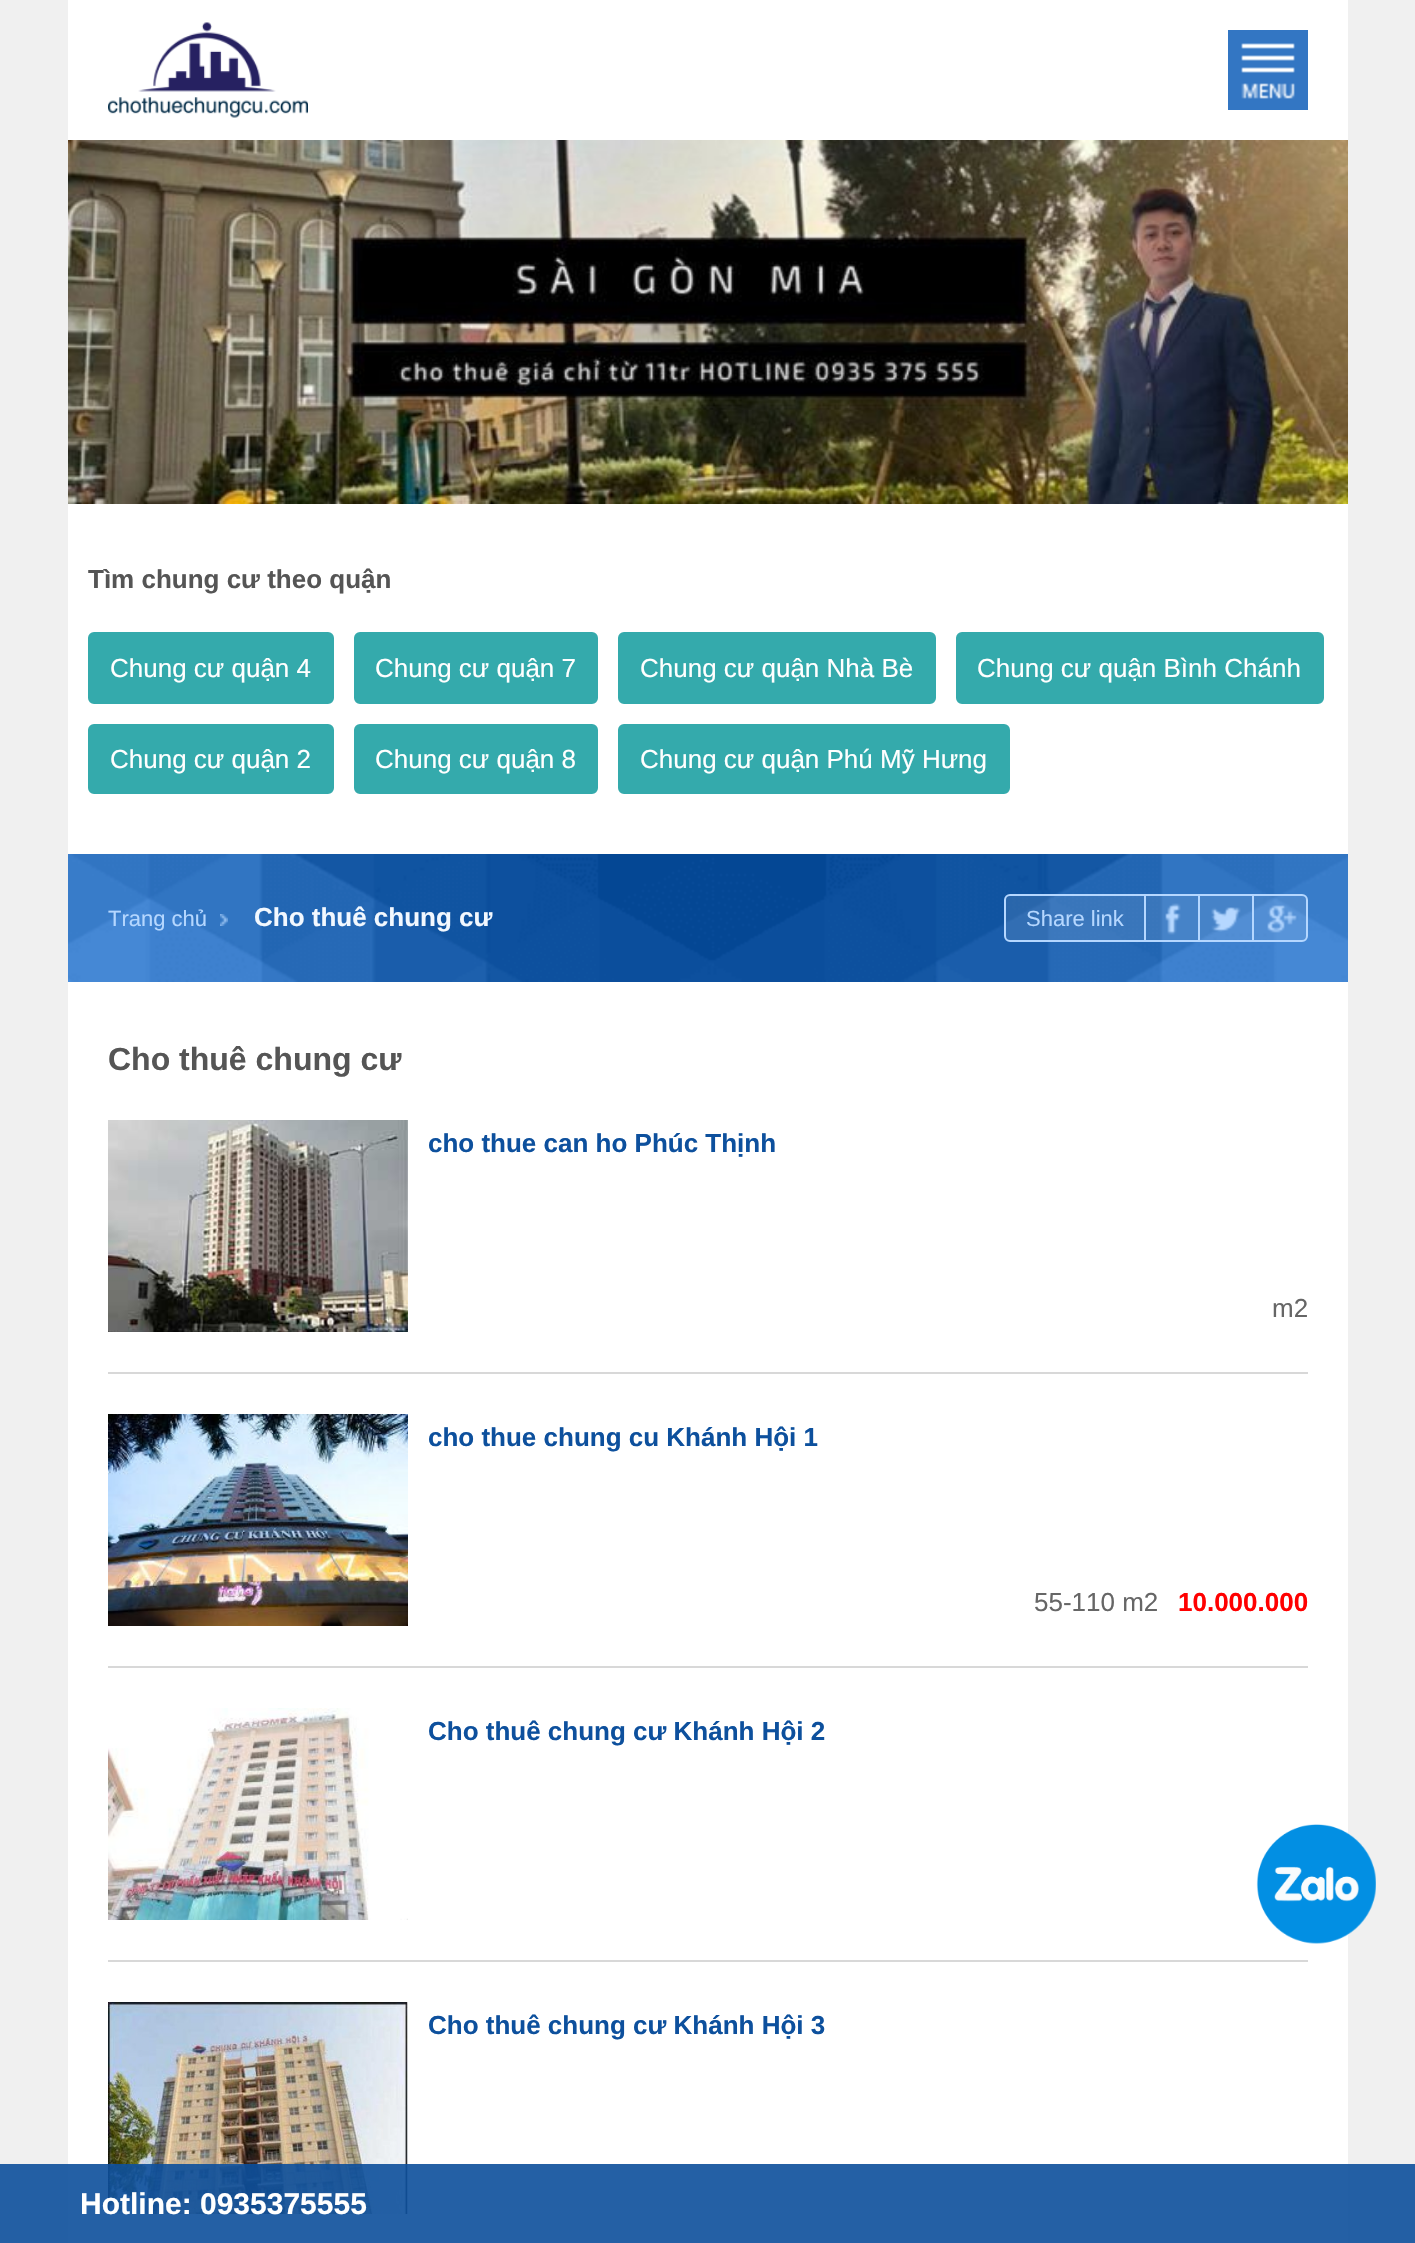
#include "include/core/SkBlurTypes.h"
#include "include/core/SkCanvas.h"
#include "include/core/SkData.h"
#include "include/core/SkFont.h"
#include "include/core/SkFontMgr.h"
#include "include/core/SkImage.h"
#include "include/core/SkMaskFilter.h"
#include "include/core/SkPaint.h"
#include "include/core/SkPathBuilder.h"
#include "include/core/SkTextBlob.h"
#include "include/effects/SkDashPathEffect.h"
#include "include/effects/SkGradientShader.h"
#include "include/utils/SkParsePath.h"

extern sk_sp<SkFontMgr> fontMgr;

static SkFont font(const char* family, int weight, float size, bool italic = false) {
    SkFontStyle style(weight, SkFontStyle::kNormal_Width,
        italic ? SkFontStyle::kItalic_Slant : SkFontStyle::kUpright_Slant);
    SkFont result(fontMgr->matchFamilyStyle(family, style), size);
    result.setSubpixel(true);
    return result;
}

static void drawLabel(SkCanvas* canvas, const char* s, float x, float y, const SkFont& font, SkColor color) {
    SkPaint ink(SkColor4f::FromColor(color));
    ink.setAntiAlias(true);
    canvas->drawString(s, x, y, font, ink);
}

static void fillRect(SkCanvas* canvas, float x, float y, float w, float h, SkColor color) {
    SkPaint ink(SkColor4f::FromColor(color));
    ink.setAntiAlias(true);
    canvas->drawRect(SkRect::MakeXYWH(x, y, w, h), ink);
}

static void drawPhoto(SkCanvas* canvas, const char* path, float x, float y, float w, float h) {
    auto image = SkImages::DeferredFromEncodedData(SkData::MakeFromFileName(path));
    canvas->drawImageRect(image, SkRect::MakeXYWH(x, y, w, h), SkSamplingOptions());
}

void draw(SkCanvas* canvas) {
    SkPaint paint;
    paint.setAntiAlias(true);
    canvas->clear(0xFFF0F0F0);
    fillRect(canvas, 68, 0, 1280, 2243, 0xFFFFFFFF);
    drawPhoto(canvas, "assets/img1.png", 108, 22, 200, 96);
    fillRect(canvas, 1228, 30, 80, 80, 0xFF3376C3);
    drawPhoto(canvas, "assets/img2.png", 1241, 43, 54, 56);
    drawPhoto(canvas, "assets/img3.png", 68, 140, 1280, 364);
    SkFont font1 = font("Liberation Sans", 700, 26);
    drawLabel(canvas, "Tìm chung cư theo quận", 88, 588, font1, 0xFF555555);
    paint.setColor(0xFF34AAAC);
    canvas->drawRoundRect(SkRect::MakeXYWH(89, 633, 244, 70), 5, 5, paint);
    paint.setStroke(true);
    paint.setStrokeWidth(2);
    canvas->drawRoundRect(SkRect::MakeXYWH(89, 633, 244, 70), 5, 5, paint);
    SkFont font2 = font("Liberation Sans", 400, 26);
    drawLabel(canvas, "Chung cư quận 4", 110, 677, font2, 0xFFFFFFFF);
    paint.setStroke(false);
    canvas->drawRoundRect(SkRect::MakeXYWH(355, 633, 242, 70), 5, 5, paint);
    paint.setStroke(true);
    canvas->drawRoundRect(SkRect::MakeXYWH(355, 633, 242, 70), 5, 5, paint);
    drawLabel(canvas, "Chung cư quận 7", 375, 677, font2, 0xFFFFFFFF);
    paint.setStroke(false);
    canvas->drawRoundRect(SkRect::MakeXYWH(619, 633, 316, 70), 5, 5, paint);
    paint.setStroke(true);
    canvas->drawRoundRect(SkRect::MakeXYWH(619, 633, 316, 70), 5, 5, paint);
    drawLabel(canvas, "Chung cư quận Nhà Bè", 640, 677, font2, 0xFFFFFFFF);
    paint.setStroke(false);
    canvas->drawRoundRect(SkRect::MakeXYWH(957, 633, 366, 70), 5, 5, paint);
    paint.setStroke(true);
    canvas->drawRoundRect(SkRect::MakeXYWH(957, 633, 366, 70), 5, 5, paint);
    drawLabel(canvas, "Chung cư quận Bình Chánh", 977, 677, font2, 0xFFFFFFFF);
    paint.setStroke(false);
    canvas->drawRoundRect(SkRect::MakeXYWH(89, 725, 244, 68), 5, 5, paint);
    paint.setStroke(true);
    canvas->drawRoundRect(SkRect::MakeXYWH(89, 725, 244, 68), 5, 5, paint);
    drawLabel(canvas, "Chung cư quận 2", 110, 768, font2, 0xFFFFFFFF);
    paint.setStroke(false);
    canvas->drawRoundRect(SkRect::MakeXYWH(355, 725, 242, 68), 5, 5, paint);
    paint.setStroke(true);
    canvas->drawRoundRect(SkRect::MakeXYWH(355, 725, 242, 68), 5, 5, paint);
    drawLabel(canvas, "Chung cư quận 8", 375, 768, font2, 0xFFFFFFFF);
    paint.setStroke(false);
    canvas->drawRoundRect(SkRect::MakeXYWH(619, 725, 390, 68), 5, 5, paint);
    paint.setStroke(true);
    canvas->drawRoundRect(SkRect::MakeXYWH(619, 725, 390, 68), 5, 5, paint);
    drawLabel(canvas, "Chung cư quận Phú Mỹ Hưng", 640, 768, font2, 0xFFFFFFFF);
    drawPhoto(canvas, "assets/img4.png", 68, 854, 1280, 128);
    SkFont font3 = font("Liberation Sans", 400, 22);
    drawLabel(canvas, "Trang chủ", 108, 926, font3, 0xFFB5D7FF);
    drawPhoto(canvas, "assets/img5.png", 220, 914, 8, 12);
    drawLabel(canvas, "Cho thuê chung cư", 254, 926, font1, 0xFFF2F8FF);
    paint.setStroke(false);
    paint.setColor(0x1AFFFFFF);
    canvas->drawRoundRect(SkRect::MakeXYWH(1005, 895, 302, 46), 5, 5, paint);
    paint.setStroke(true);
    paint.setColor(0xFFB5D7FF);
    canvas->drawRoundRect(SkRect::MakeXYWH(1005, 895, 302, 46), 5, 5, paint);
    drawLabel(canvas, "Share link", 1026, 926, font3, 0xFFB5D7FF);
    fillRect(canvas, 1144, 896, 2, 44, 0xFFB5D7FF);
    drawPhoto(canvas, "assets/img6.png", 1165, 903, 16, 32);
    fillRect(canvas, 1198, 896, 2, 44, 0xFFB5D7FF);
    drawPhoto(canvas, "assets/img7.png", 1211, 907, 30, 25);
    fillRect(canvas, 1252, 896, 2, 44, 0xFFB5D7FF);
    drawPhoto(canvas, "assets/img8.png", 1267, 905, 30, 28);
    SkFont font4 = font("Liberation Sans", 700, 32);
    drawLabel(canvas, "Cho thuê chung cư", 108, 1070, font4, 0xFF555555);
    drawPhoto(canvas, "assets/img9.png", 108, 1120, 300, 212);
    drawLabel(canvas, "cho thue can ho Phúc Thịnh", 428, 1152, font1, 0xFF0D509D);
    drawLabel(canvas, "m2", 1272, 1317, font2, 0xFF666666);
    fillRect(canvas, 108, 1372, 1200, 2, 0xFFD8D8D8);
    drawPhoto(canvas, "assets/img10.png", 108, 1414, 300, 212);
    drawLabel(canvas, "cho thue chung cu Khánh Hội 1", 428, 1446, font1, 0xFF0D509D);
    drawLabel(canvas, "55-110 m2", 1034, 1611, font2, 0xFF666666);
    drawLabel(canvas, "10.000.000", 1178, 1611, font1, 0xFFFF0000);
    fillRect(canvas, 108, 1666, 1200, 2, 0xFFD8D8D8);
    drawPhoto(canvas, "assets/img11.png", 108, 1708, 300, 212);
    drawLabel(canvas, "Cho thuê chung cư Khánh Hội 2", 428, 1740, font1, 0xFF0D509D);
    fillRect(canvas, 108, 1960, 1200, 2, 0xFFD8D8D8);
    drawPhoto(canvas, "assets/img12.png", 108, 2002, 300, 212);
    drawLabel(canvas, "Cho thuê chung cư Khánh Hội 3", 428, 2034, font1, 0xFF0D509D);
    drawPhoto(canvas, "assets/img13.png", 1256, 1824, 120, 120);
    fillRect(canvas, 0, 2164, 1415, 79, 0xE60C4F9B);
    SkFont font5 = font("Liberation Sans", 700, 30);
    drawLabel(canvas, "Hotline: 0935375555", 80, 2214, font5, 0xFFFFFFFF);
}
